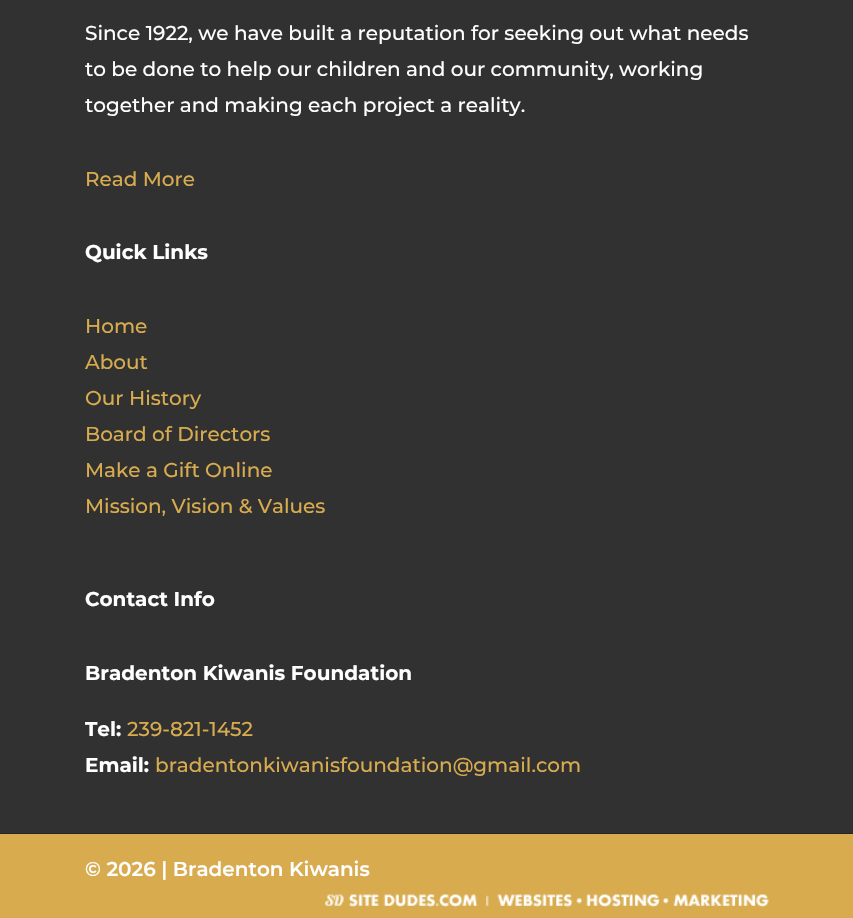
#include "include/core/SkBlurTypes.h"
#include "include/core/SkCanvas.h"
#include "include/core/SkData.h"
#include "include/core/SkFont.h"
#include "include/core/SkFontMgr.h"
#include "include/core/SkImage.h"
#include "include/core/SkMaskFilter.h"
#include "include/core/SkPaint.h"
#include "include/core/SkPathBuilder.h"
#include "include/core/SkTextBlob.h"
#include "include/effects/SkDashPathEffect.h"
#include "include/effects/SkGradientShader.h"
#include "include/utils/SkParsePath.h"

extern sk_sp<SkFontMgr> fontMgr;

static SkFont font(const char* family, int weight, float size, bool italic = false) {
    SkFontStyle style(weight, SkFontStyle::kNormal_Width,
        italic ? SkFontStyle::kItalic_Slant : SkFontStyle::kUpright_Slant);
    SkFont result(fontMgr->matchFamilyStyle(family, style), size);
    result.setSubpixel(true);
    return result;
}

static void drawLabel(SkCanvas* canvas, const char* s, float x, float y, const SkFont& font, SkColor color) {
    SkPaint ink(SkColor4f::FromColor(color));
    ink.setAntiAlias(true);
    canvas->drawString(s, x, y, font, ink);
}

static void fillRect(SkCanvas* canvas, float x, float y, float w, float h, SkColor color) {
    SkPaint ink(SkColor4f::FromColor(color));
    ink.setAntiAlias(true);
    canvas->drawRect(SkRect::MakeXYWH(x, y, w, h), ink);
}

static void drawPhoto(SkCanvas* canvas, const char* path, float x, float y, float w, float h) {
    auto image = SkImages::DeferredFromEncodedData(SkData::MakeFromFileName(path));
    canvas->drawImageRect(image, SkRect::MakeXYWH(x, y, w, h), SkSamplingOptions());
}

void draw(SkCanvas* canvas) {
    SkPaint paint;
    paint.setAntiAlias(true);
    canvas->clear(0xFFD7AB4E);
    fillRect(canvas, 0, 833, 853, 1, 0xFF262626);
    fillRect(canvas, 0, 0, 853, 833, 0xFF313131);
    SkFont font1 = font("Montserrat", 500, 20);
    drawLabel(canvas, "Since 1922, we have built a reputation for seeking out what needs", 85, 40, font1, 0xFFFFFFFF);
    drawLabel(canvas, "to be done to help our children and our community, working", 85, 76, font1, 0xFFFFFFFF);
    drawLabel(canvas, "together and making each project a reality.", 85, 112, font1, 0xFFFFFFFF);
    drawLabel(canvas, "Read More", 85, 186, font1, 0xFFD7AB4E);
    SkFont font2 = font("Montserrat", 700, 20);
    drawLabel(canvas, "Quick Links", 85, 259, font2, 0xFFFFFFFF);
    drawLabel(canvas, "Home", 85, 333, font1, 0xFFD7AB4E);
    drawLabel(canvas, "About", 85, 369, font1, 0xFFD7AB4E);
    drawLabel(canvas, "Our History", 85, 405, font1, 0xFFD7AB4E);
    drawLabel(canvas, "Board of Directors", 85, 441, font1, 0xFFD7AB4E);
    drawLabel(canvas, "Make a Gift Online", 85, 477, font1, 0xFFD7AB4E);
    drawLabel(canvas, "Mission, Vision & Values", 85, 513, font1, 0xFFD7AB4E);
    drawLabel(canvas, "Contact Info", 85, 606, font2, 0xFFFFFFFF);
    drawLabel(canvas, "Bradenton Kiwanis Foundation", 85, 680, font2, 0xFFFFFFFF);
    drawLabel(canvas, "Tel:", 85, 736, font2, 0xFFFFFFFF);
    drawLabel(canvas, "239-821-1452", 127, 736, font1, 0xFFD7AB4E);
    drawLabel(canvas, "Email:", 85, 772, font2, 0xFFFFFFFF);
    drawLabel(canvas, "bradentonkiwanisfoundation@gmail.com", 155, 772, font1, 0xFFD7AB4E);
    SkFont font3 = font("Montserrat", 600, 20);
    drawLabel(canvas, "© 2026 | Bradenton Kiwanis", 85, 876, font3, 0xFFFFFFFF);
    drawPhoto(canvas, "assets/img1.png", 325, 894, 444, 14);
}
